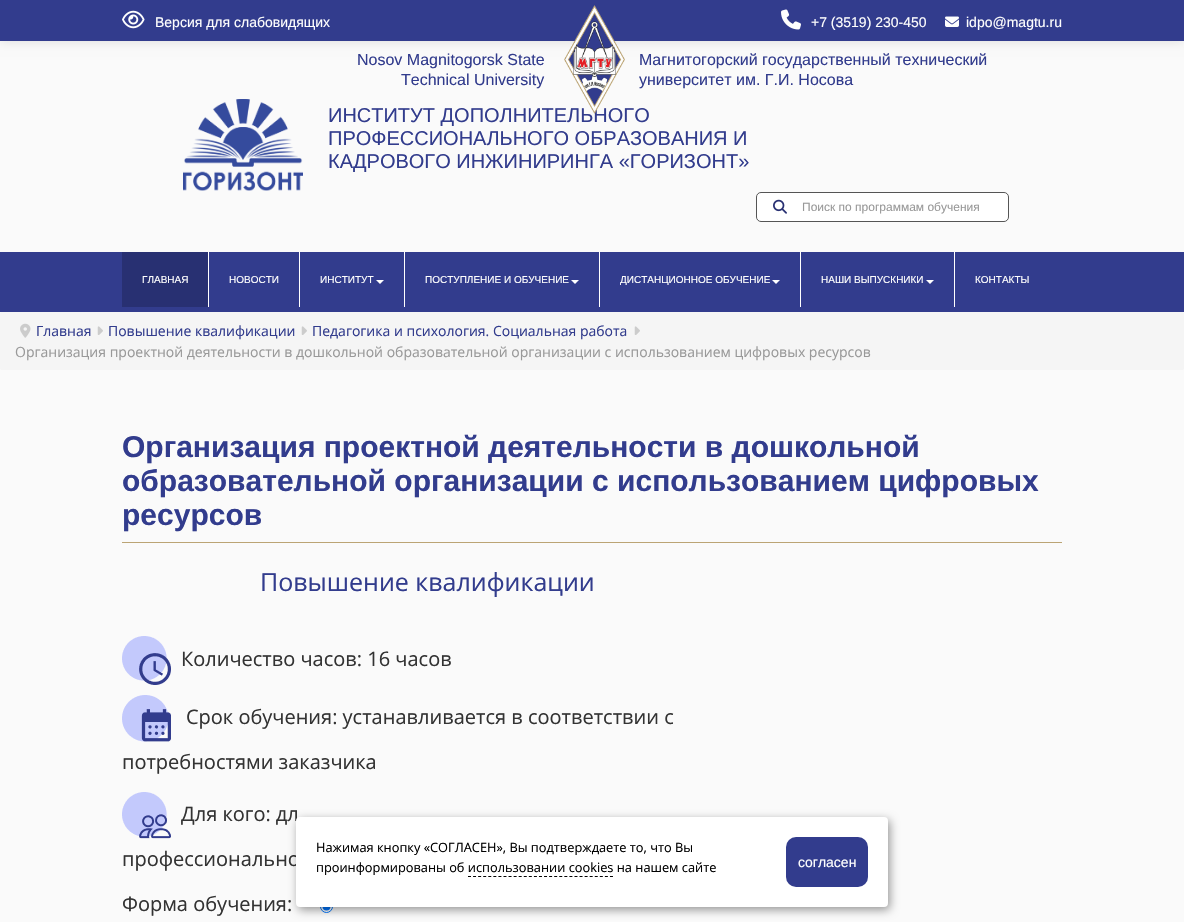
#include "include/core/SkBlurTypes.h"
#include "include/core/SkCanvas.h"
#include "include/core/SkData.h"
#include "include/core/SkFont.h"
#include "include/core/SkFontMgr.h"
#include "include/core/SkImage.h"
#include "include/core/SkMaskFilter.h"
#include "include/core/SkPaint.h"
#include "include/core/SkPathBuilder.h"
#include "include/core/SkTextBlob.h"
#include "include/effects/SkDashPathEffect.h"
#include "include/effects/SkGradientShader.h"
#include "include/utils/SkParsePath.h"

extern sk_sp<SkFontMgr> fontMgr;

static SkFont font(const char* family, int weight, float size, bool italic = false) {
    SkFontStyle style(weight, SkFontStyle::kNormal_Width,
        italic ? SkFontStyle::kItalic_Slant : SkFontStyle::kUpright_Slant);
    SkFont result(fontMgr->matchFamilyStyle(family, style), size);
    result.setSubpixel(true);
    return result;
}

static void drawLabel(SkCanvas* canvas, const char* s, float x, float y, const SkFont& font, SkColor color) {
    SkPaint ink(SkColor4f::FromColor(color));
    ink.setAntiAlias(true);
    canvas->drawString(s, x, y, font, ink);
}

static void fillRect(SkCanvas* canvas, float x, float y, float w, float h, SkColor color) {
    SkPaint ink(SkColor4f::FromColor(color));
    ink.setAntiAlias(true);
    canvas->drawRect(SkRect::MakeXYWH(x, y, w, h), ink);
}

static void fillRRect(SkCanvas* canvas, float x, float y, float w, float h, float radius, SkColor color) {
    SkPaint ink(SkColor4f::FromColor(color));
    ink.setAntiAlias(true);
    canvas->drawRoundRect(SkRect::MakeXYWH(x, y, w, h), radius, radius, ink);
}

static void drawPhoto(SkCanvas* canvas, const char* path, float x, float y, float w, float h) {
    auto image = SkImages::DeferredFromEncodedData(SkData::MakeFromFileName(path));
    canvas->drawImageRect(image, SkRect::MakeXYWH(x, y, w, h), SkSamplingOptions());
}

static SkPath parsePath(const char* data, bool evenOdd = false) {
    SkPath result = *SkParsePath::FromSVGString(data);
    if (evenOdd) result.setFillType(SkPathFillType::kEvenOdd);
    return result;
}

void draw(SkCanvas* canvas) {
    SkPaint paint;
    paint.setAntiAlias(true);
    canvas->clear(0xFFFAFAFA);
    paint.setColor(0x1A000000);
    paint.setMaskFilter(SkMaskFilter::MakeBlur(kNormal_SkBlurStyle, 5));
    canvas->drawRect(SkRect::MakeXYWH(0, 1, 1184, 41), paint);
    paint.setMaskFilter(nullptr);
    fillRect(canvas, 0, 0, 1184, 41, 0xFF323C8D);
    drawPhoto(canvas, "assets/img1.png", 122, 10, 23, 19);
    SkFont font1 = font("Liberation Sans", 400, 14);
    drawLabel(canvas, "Версия для слабовидящих", 155, 27, font1, 0xFFFEFEFE);
    SkFont font2 = font("Liberation Sans", 400, 20);
    drawLabel(canvas, "ИНСТИТУТ ДОПОЛНИТЕЛЬНОГО", 328, 122, font2, 0xFF323C8D);
    drawPhoto(canvas, "assets/img2.png", 564, 5, 61, 109);
    drawPhoto(canvas, "assets/img3.png", 781, 9, 20, 21);
    drawLabel(canvas, "+7 (3519) 230-450", 811, 27, font1, 0xFFFEFEFE);
    drawPhoto(canvas, "assets/img4.png", 945, 16, 14, 11);
    drawLabel(canvas, "idpo@magtu.ru", 966, 27, font1, 0xFFFEFEFE);
    SkFont font3 = font("Liberation Sans", 400, 16);
    drawLabel(canvas, "Nosov Magnitogorsk State", 357, 65, font3, 0xFF323C8D);
    drawLabel(canvas, "Technical University", 401, 85, font3, 0xFF323C8D);
    drawLabel(canvas, "Магнитогорский государственный технический", 639, 65, font3, 0xFF323C8D);
    drawLabel(canvas, "университет им. Г.И. Носова", 639, 85, font3, 0xFF323C8D);
    drawPhoto(canvas, "assets/img5.png", 183, 99, 120, 92);
    drawLabel(canvas, "ПРОФЕССИОНАЛЬНОГО ОБРАЗОВАНИЯ И", 328, 145, font2, 0xFF323C8D);
    drawLabel(canvas, "КАДРОВОГО ИНЖИНИРИНГА «ГОРИЗОНТ»", 328, 168, font2, 0xFF323C8D);
    paint.setColor(0xFFFFFFFF);
    canvas->drawRoundRect(SkRect::MakeXYWH(756.5f, 192.5f, 252, 29), 4.5f, 4.5f, paint);
    paint.setStroke(true);
    paint.setStrokeWidth(1);
    paint.setColor(0xFF555555);
    canvas->drawRoundRect(SkRect::MakeXYWH(756.5f, 192.5f, 252, 29), 4.5f, 4.5f, paint);
    drawPhoto(canvas, "assets/img6.png", 773, 199, 14, 15);
    SkFont font4 = font("Liberation Sans", 400, 12);
    drawLabel(canvas, "Поиск по программам обучения", 802, 211, font4, 0xFF999999);
    fillRect(canvas, 0, 252, 1184, 60, 0xFF323C8D);
    fillRect(canvas, 208, 252, 1, 55, 0xFFFFFFFF);
    fillRect(canvas, 122, 252, 86, 55, 0xFF283072);
    SkFont font5 = font("Liberation Sans", 400, 10);
    drawLabel(canvas, "ГЛАВНАЯ", 142, 283, font5, 0xFFFEFEFE);
    fillRect(canvas, 299, 252, 1, 55, 0xFFFFFFFF);
    drawLabel(canvas, "НОВОСТИ", 229, 283, font5, 0xFFFEFEFE);
    fillRect(canvas, 404, 252, 1, 55, 0xFFFFFFFF);
    drawLabel(canvas, "ИНСТИТУТ", 320, 283, font5, 0xFFFEFEFE);
    paint.setStroke(false);
    paint.setColor(0xFFFFFFFF);
    canvas->drawPath(parsePath("M376 280H384L380 284Z"), paint);
    fillRect(canvas, 599, 252, 1, 55, 0xFFFFFFFF);
    drawLabel(canvas, "ПОСТУПЛЕНИЕ И ОБУЧЕНИЕ", 425, 283, font5, 0xFFFEFEFE);
    canvas->drawPath(parsePath("M571 280H579L575 284Z"), paint);
    fillRect(canvas, 800, 252, 1, 55, 0xFFFFFFFF);
    drawLabel(canvas, "ДИСТАНЦИОННОЕ ОБУЧЕНИЕ", 620, 283, font5, 0xFFFEFEFE);
    canvas->drawPath(parsePath("M772 280H780L776 284Z"), paint);
    fillRect(canvas, 954, 252, 1, 55, 0xFFFFFFFF);
    drawLabel(canvas, "НАШИ ВЫПУСКНИКИ", 821, 283, font5, 0xFFFEFEFE);
    canvas->drawPath(parsePath("M926 280H934L930 284Z"), paint);
    drawLabel(canvas, "КОНТАКТЫ", 975, 283, font5, 0xFFFEFEFE);
    fillRRect(canvas, 0, 312, 1184, 58, 2, 0xFFF5F5F5);
    drawPhoto(canvas, "assets/img7.png", 20, 323, 11, 15);
    SkFont font6 = font("Open Sans", 400, 14);
    drawLabel(canvas, "Главная", 36, 336, font6, 0xFF323C8D);
    drawPhoto(canvas, "assets/img8.png", 97, 326, 6, 9);
    drawLabel(canvas, "Повышение квалификации", 108, 336, font6, 0xFF323C8D);
    drawPhoto(canvas, "assets/img8.png", 301, 326, 6, 9);
    drawLabel(canvas, "Педагогика и психология. Социальная работа", 312, 336, font6, 0xFF323C8D);
    drawPhoto(canvas, "assets/img8.png", 634, 326, 6, 9);
    drawLabel(canvas, "Организация проектной деятельности в дошкольной образовательной организации с использованием цифровых ресурсов", 15, 357, font6, 0xFF999999);
    fillRect(canvas, 122, 542, 940, 1, 0xFFBBA474);
    SkFont font7 = font("Liberation Sans", 700, 30);
    drawLabel(canvas, "Организация проектной деятельности в дошкольной", 122, 457, font7, 0xFF323C8D);
    drawLabel(canvas, "образовательной организации с использованием цифровых", 122, 491, font7, 0xFF323C8D);
    drawLabel(canvas, "ресурсов", 122, 525, font7, 0xFF323C8D);
    SkFont font8 = font("Open Sans", 400, 25);
    drawLabel(canvas, "Повышение квалификации", 260, 591, font8, 0xFF323C8D);
    drawPhoto(canvas, "assets/img9.png", 122, 636, 49, 49);
    SkFont font9 = font("Open Sans", 400, 20);
    drawLabel(canvas, "Количество часов: 16 часов", 181, 666, font9, 0xFF333333);
    drawPhoto(canvas, "assets/img10.png", 122, 695, 49, 47);
    drawLabel(canvas, "Срок обучения: устанавливается в соответствии с", 186, 724, font9, 0xFF333333);
    drawLabel(canvas, "потребностями заказчика", 122, 769, font9, 0xFF333333);
    drawPhoto(canvas, "assets/img11.png", 122, 792, 49, 47);
    drawLabel(canvas, "Для кого: дл", 181, 821, font9, 0xFF333333);
    drawLabel(canvas, "профессионально", 122, 866, font9, 0xFF333333);
    drawLabel(canvas, "Форма обучения:", 122, 911, font9, 0xFF333333);
    canvas->drawCircle(326.5f, 906.5f, 6, paint);
    paint.setStroke(true);
    paint.setColor(0xFF0075FF);
    canvas->drawCircle(326.5f, 906.5f, 6, paint);
    paint.setStroke(false);
    canvas->drawCircle(326.5f, 906.5f, 4, paint);
    paint.setColor(0x66000000);
    paint.setMaskFilter(SkMaskFilter::MakeBlur(kNormal_SkBlurStyle, 5));
    canvas->drawRoundRect(SkRect::MakeXYWH(298, 820, 592, 90), 4, 4, paint);
    paint.setMaskFilter(nullptr);
    fillRRect(canvas, 296, 817, 592, 90, 4, 0xFFFFFFFF);
    SkFont font10 = font("Open Sans", 400, 12.8f);
    drawLabel(canvas, "Нажимая кнопку «СОГЛАСЕН», Вы подтверждаете то, что Вы", 316, 852, font10, 0xFF000000);
    drawLabel(canvas, "проинформированы об использовании cookies на нашем сайте", 316, 872, font10, 0xFF000000);
    paint.setStroke(true);
    paint.setColor(0xFF000000);
    paint.setPathEffect(SkDashPathEffect::Make({{3, 2.07f}}, 0));
    canvas->drawPath(parsePath("M468 876.5H613"), paint);
    paint.setPathEffect(nullptr);
    fillRRect(canvas, 786, 837, 82, 50, 10, 0xFF323C8D);
    drawLabel(canvas, "согласен", 798, 867, font1, 0xFFFEFEFE);
}
